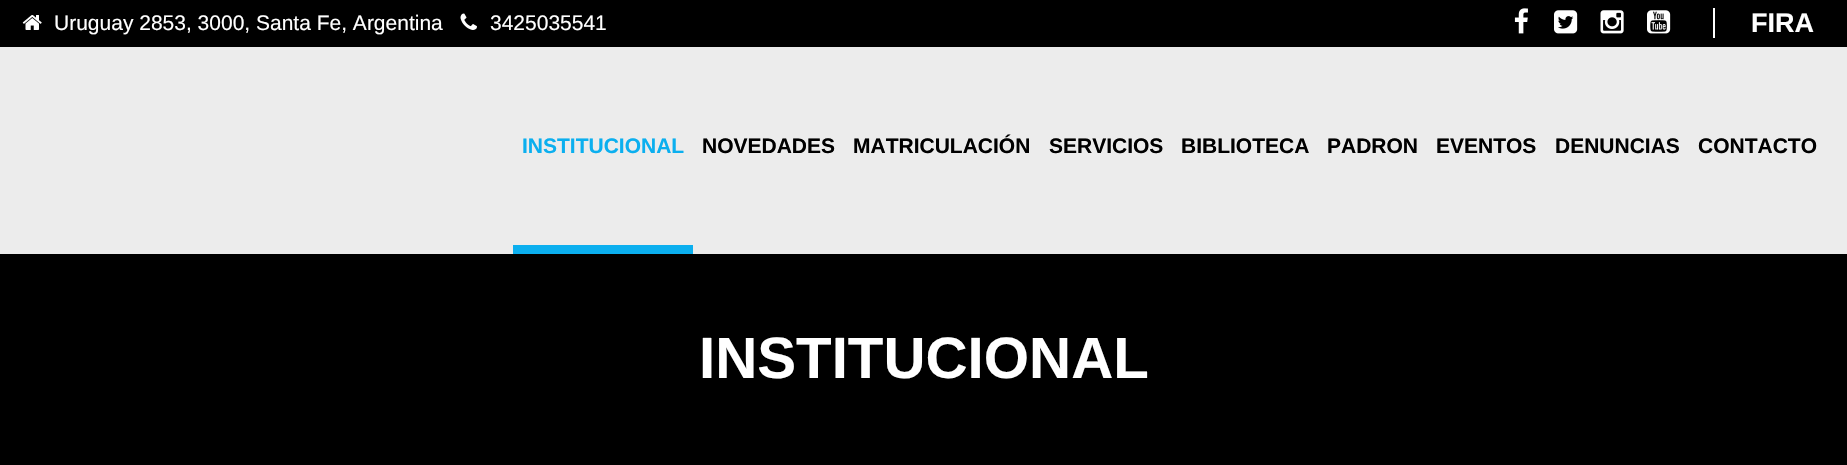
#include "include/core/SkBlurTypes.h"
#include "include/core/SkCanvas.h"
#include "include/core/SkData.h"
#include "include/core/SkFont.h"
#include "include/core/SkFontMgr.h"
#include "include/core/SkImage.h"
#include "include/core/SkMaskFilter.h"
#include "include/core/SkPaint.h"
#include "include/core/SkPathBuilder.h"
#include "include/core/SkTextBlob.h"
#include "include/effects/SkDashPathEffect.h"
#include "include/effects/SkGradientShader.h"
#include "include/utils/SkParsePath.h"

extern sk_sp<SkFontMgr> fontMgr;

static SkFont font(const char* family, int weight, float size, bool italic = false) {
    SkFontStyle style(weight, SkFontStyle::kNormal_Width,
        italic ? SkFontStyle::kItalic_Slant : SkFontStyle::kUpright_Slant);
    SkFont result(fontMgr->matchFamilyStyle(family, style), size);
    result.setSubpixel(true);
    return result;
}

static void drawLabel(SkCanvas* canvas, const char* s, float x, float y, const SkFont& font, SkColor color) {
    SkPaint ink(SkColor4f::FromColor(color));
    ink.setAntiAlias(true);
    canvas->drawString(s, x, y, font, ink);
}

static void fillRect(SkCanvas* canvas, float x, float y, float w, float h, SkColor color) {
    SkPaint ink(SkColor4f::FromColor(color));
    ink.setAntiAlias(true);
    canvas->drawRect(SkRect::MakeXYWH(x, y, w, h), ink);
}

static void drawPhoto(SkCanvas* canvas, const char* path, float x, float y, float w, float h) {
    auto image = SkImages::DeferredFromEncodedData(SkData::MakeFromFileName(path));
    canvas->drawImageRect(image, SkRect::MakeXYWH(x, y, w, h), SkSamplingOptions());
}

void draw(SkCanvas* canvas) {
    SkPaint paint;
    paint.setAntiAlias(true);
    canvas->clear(0xFF000000);
    drawPhoto(canvas, "assets/img1.png", 22, 15, 20, 15);
    SkFont font1 = font("Arimo", 400, 21);
    drawLabel(canvas, "Uruguay 2853, 3000, Santa Fe, Argentina", 54, 30, font1, 0xFFFFFFFF);
    drawPhoto(canvas, "assets/img2.png", 460, 13, 17, 17);
    drawLabel(canvas, "3425035541", 490, 30, font1, 0xFFFFFFFF);
    drawPhoto(canvas, "assets/img3.png", 1514, 8, 14, 26);
    drawPhoto(canvas, "assets/img4.png", 1554, 10, 24, 24);
    drawPhoto(canvas, "assets/img5.png", 1600, 10, 24, 24);
    drawPhoto(canvas, "assets/img6.png", 1647, 10, 24, 24);
    SkFont font2 = font("Arimo", 700, 27);
    drawLabel(canvas, "FIRA", 1751, 32, font2, 0xFFFFFFFF);
    fillRect(canvas, 1713, 8, 2, 30, 0xFFFFFFFF);
    fillRect(canvas, 0, 47, 1847, 207, 0xFFECECEC);
    fillRect(canvas, 513, 245, 180, 9, 0xFF0BAFEF);
    SkFont font3 = font("Arimo", 700, 21);
    drawLabel(canvas, "INSTITUCIONAL", 522, 153, font3, 0xFF0BAFEF);
    drawLabel(canvas, "NOVEDADES", 702, 153, font3, 0xFF000000);
    drawLabel(canvas, "MATRICULACIÓN", 853, 153, font3, 0xFF000000);
    drawLabel(canvas, "SERVICIOS", 1049, 153, font3, 0xFF000000);
    drawLabel(canvas, "BIBLIOTECA", 1181, 153, font3, 0xFF000000);
    drawLabel(canvas, "PADRON", 1327, 153, font3, 0xFF000000);
    drawLabel(canvas, "EVENTOS", 1436, 153, font3, 0xFF000000);
    drawLabel(canvas, "DENUNCIAS", 1555, 153, font3, 0xFF000000);
    drawLabel(canvas, "CONTACTO", 1698, 153, font3, 0xFF000000);
    SkFont font4 = font("Arimo", 700, 58.25f);
    drawLabel(canvas, "INSTITUCIONAL", 699, 378, font4, 0xFFFFFFFF);
}
